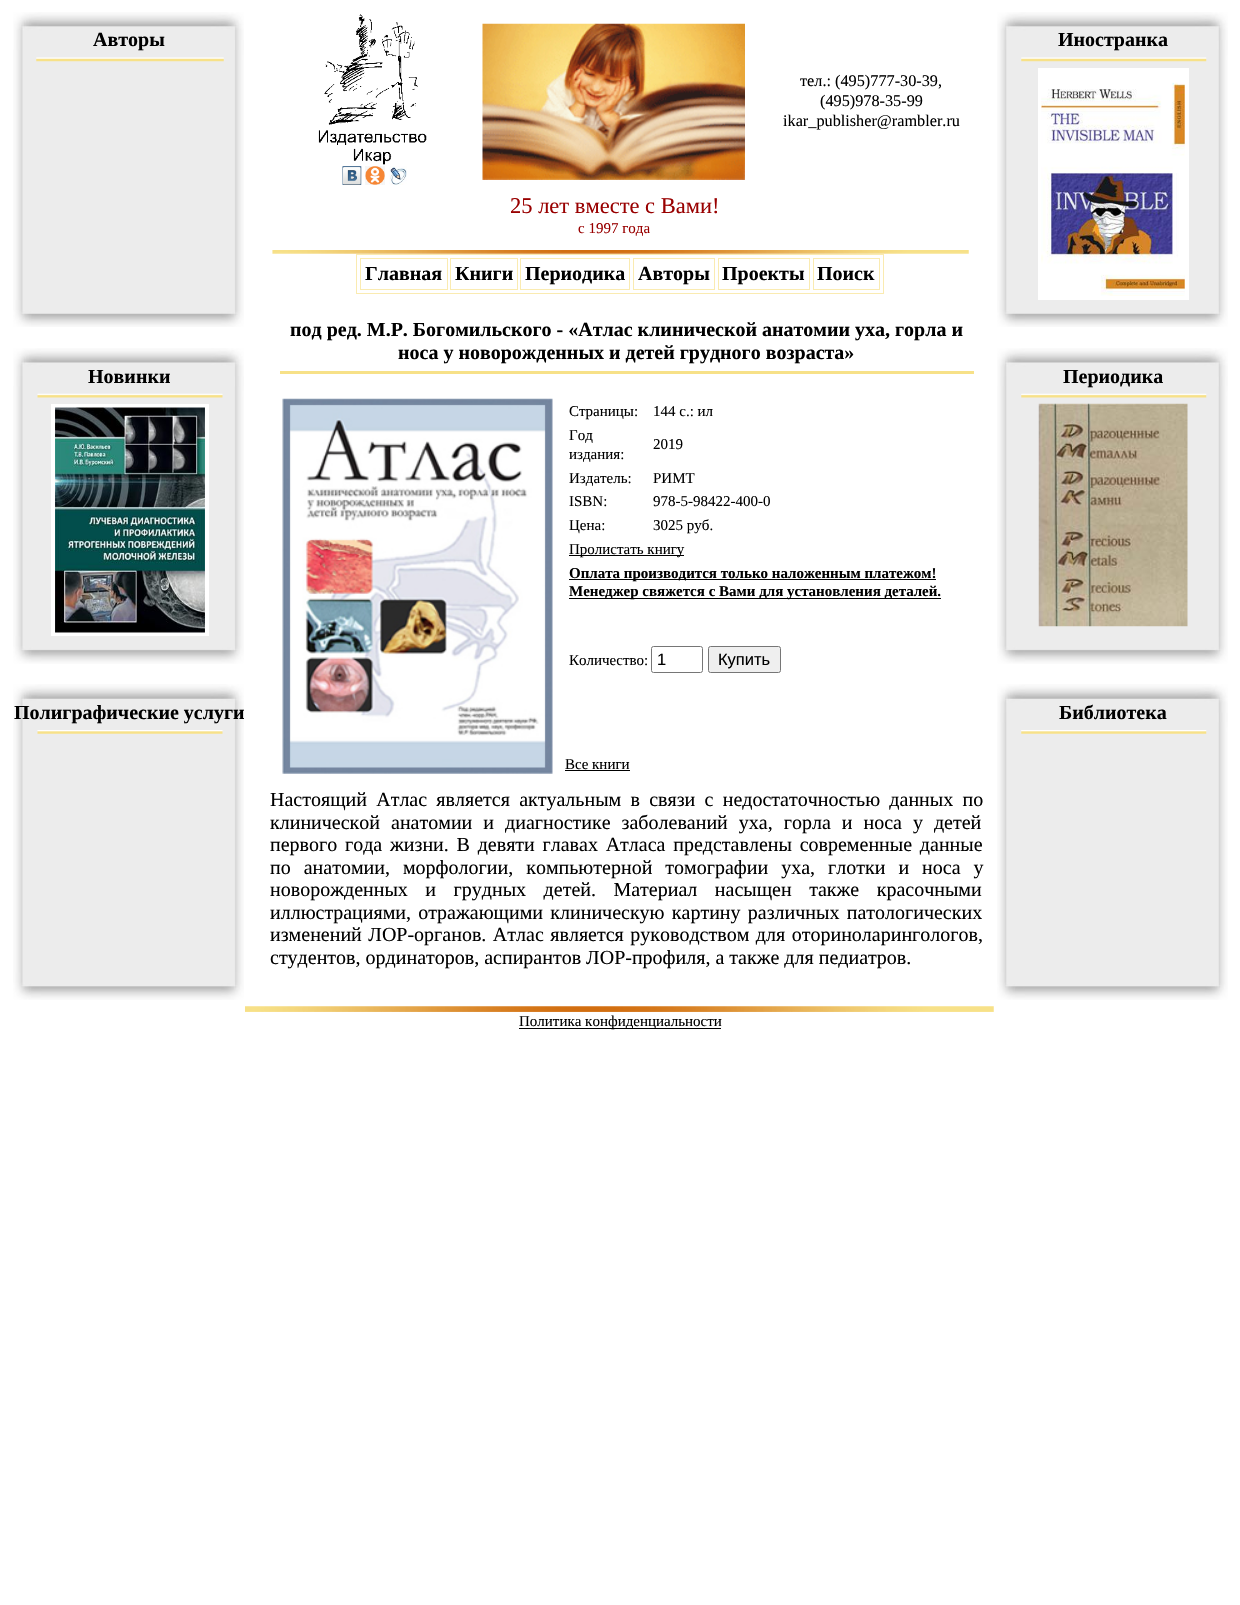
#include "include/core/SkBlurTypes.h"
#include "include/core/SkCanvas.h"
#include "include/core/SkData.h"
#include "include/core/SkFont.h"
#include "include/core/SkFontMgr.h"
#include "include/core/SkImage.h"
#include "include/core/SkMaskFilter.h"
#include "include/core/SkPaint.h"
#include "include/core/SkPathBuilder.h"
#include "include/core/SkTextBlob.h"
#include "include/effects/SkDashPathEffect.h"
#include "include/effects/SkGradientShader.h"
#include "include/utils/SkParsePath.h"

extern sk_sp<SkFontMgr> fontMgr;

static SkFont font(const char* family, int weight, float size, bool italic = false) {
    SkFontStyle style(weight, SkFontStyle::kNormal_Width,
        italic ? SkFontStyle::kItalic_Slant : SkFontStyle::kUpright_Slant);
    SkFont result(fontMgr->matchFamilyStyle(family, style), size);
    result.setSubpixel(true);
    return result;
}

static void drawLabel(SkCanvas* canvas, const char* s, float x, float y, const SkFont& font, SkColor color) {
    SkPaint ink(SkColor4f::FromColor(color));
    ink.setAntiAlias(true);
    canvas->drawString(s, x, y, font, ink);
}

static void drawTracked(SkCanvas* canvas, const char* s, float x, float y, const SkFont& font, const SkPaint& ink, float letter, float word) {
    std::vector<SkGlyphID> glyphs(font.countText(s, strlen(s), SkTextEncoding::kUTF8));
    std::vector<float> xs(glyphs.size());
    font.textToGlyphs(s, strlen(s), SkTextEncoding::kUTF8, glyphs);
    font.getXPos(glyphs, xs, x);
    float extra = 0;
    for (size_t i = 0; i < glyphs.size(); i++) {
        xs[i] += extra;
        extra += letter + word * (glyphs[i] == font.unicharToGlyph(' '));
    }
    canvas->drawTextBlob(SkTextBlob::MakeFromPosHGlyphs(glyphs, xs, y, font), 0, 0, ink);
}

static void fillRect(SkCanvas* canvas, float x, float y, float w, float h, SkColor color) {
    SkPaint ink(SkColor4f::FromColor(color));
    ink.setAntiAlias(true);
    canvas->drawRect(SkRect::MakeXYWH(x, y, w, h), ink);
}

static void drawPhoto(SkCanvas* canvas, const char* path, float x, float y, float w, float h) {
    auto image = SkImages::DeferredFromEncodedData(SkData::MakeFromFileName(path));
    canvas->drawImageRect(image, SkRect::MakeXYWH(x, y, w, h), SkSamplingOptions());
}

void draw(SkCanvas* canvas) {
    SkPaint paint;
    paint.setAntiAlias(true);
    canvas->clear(0xFFFFFFFF);
    drawPhoto(canvas, "assets/img1.png", 13, 12, 231, 315);
    SkFont font1 = font("Liberation Serif", 700, 20);
    drawLabel(canvas, "Авторы", 93, 46, font1, 0xFF000000);
    drawPhoto(canvas, "assets/img2.png", 36, 57, 188, 5);
    drawPhoto(canvas, "assets/img3.png", 13, 348, 231, 316);
    drawLabel(canvas, "Новинки", 88, 383, font1, 0xFF000000);
    drawPhoto(canvas, "assets/img4.png", 37, 393, 186, 5);
    paint.setStroke(true);
    paint.setStrokeWidth(4);
    paint.setColor(0xFFFFFFFF);
    canvas->drawRect(SkRect::MakeXYWH(53, 406, 154, 228), paint);
    drawPhoto(canvas, "assets/img5.png", 55, 407, 150, 226);
    drawPhoto(canvas, "assets/img6.png", 13, 684, 231, 316);
    drawLabel(canvas, "Полиграфические услуги", 14, 719, font1, 0xFF000000);
    drawPhoto(canvas, "assets/img7.png", 37, 730, 186, 4);
    drawPhoto(canvas, "assets/img8.png", 318, 14, 109, 151);
    drawPhoto(canvas, "assets/img9.png", 342, 166, 20, 19);
    drawPhoto(canvas, "assets/img10.png", 365, 166, 20, 19);
    drawPhoto(canvas, "assets/img11.png", 389, 166, 18, 19);
    drawPhoto(canvas, "assets/img12.png", 482, 23, 263, 157);
    SkFont font2 = font("Liberation Serif", 400, 16.25f);
    drawLabel(canvas, "тел.: (495)777-30-39,", 800, 86, font2, 0xFF000000);
    drawLabel(canvas, "(495)978-35-99", 820, 106, font2, 0xFF000000);
    drawLabel(canvas, "ikar_publisher@rambler.ru", 783, 126, font2, 0xFF000000);
    drawPhoto(canvas, "assets/img13.png", 997, 12, 231, 315);
    drawLabel(canvas, "Иностранка", 1058, 46, font1, 0xFF000000);
    drawPhoto(canvas, "assets/img14.png", 1021, 57, 186, 5);
    canvas->drawRect(SkRect::MakeXYWH(1040, 70, 147, 228), paint);
    drawPhoto(canvas, "assets/img15.png", 1041, 72, 144, 224);
    drawPhoto(canvas, "assets/img16.png", 997, 348, 231, 316);
    drawLabel(canvas, "Периодика", 1063, 383, font1, 0xFF000000);
    drawPhoto(canvas, "assets/img17.png", 1021, 393, 186, 5);
    drawPhoto(canvas, "assets/img18.png", 1038, 403, 150, 224);
    drawPhoto(canvas, "assets/img19.png", 997, 684, 231, 316);
    drawLabel(canvas, "Библиотека", 1059, 719, font1, 0xFF000000);
    drawPhoto(canvas, "assets/img20.png", 1021, 730, 186, 4);
    SkFont font3 = font("Liberation Serif", 400, 22.5f);
    drawLabel(canvas, "25 лет вместе с Вами!", 510, 213, font3, 0xFF990000);
    SkFont font4 = font("Liberation Serif", 400, 15);
    drawLabel(canvas, "с 1997 года", 578, 233, font4, 0xFF990000);
    drawPhoto(canvas, "assets/img21.png", 272, 250, 697, 4);
    paint.setStrokeWidth(1);
    paint.setColor(0xFFFAEBB1);
    canvas->drawRect(SkRect::MakeXYWH(356.5f, 254.5f, 527, 39), paint);
    canvas->drawRect(SkRect::MakeXYWH(360.5f, 258.5f, 87, 31), paint);
    drawLabel(canvas, "Главная", 365, 280, font1, 0xFF000000);
    canvas->drawRect(SkRect::MakeXYWH(450.5f, 258.5f, 67, 31), paint);
    drawLabel(canvas, "Книги", 455, 280, font1, 0xFF000000);
    canvas->drawRect(SkRect::MakeXYWH(520.5f, 258.5f, 109, 31), paint);
    drawLabel(canvas, "Периодика", 525, 280, font1, 0xFF000000);
    canvas->drawRect(SkRect::MakeXYWH(633.5f, 258.5f, 81, 31), paint);
    drawLabel(canvas, "Авторы", 638, 280, font1, 0xFF000000);
    canvas->drawRect(SkRect::MakeXYWH(718.5f, 258.5f, 91, 31), paint);
    drawLabel(canvas, "Проекты", 722, 280, font1, 0xFF000000);
    canvas->drawRect(SkRect::MakeXYWH(813.5f, 258.5f, 66, 31), paint);
    drawLabel(canvas, "Поиск", 817, 280, font1, 0xFF000000);
    drawLabel(canvas, "под ред. М.Р. Богомильского - «Атлас клинической анатомии уха, горла и", 290, 336, font1, 0xFF000000);
    drawLabel(canvas, "носа у новорожденных и детей грудного возраста»", 398, 359, font1, 0xFF000000);
    fillRect(canvas, 280, 371, 694, 3, 0xFFF7E188);
    drawPhoto(canvas, "assets/img22.png", 282, 398, 271, 376);
    drawLabel(canvas, "Страницы:", 569, 416, font4, 0xFF000000);
    drawLabel(canvas, "144 с.: ил", 653, 416, font4, 0xFF000000);
    drawLabel(canvas, "Год", 569, 440, font4, 0xFF000000);
    drawLabel(canvas, "издания:", 569, 459, font4, 0xFF000000);
    drawLabel(canvas, "2019", 653, 449, font4, 0xFF000000);
    drawLabel(canvas, "Издатель:", 569, 483, font4, 0xFF000000);
    drawLabel(canvas, "РИМТ", 653, 483, font4, 0xFF000000);
    drawLabel(canvas, "ISBN:", 569, 506, font4, 0xFF000000);
    drawLabel(canvas, "978-5-98422-400-0", 653, 506, font4, 0xFF000000);
    drawLabel(canvas, "Цена:", 569, 530, font4, 0xFF000000);
    drawLabel(canvas, "3025 руб.", 653, 530, font4, 0xFF000000);
    fillRect(canvas, 569, 555, 115, 1, 0xFF000000);
    drawLabel(canvas, "Пролистать книгу", 569, 554, font4, 0xFF000000);
    fillRect(canvas, 569, 579, 367, 1, 0xFF000000);
    SkFont font5 = font("Liberation Serif", 700, 15);
    drawLabel(canvas, "Оплата производится только наложенным платежом!", 569, 578, font5, 0xFF000000);
    fillRect(canvas, 569, 598, 372, 1, 0xFF000000);
    drawLabel(canvas, "Менеджер свяжется с Вами для установления деталей.", 569, 596, font5, 0xFF000000);
    drawLabel(canvas, "Количество:", 569, 665, font4, 0xFF000000);
    paint.setColor(0xFF767676);
    canvas->drawRoundRect(SkRect::MakeXYWH(651.5f, 646.5f, 51, 26), 2, 2, paint);
    SkFont font6 = font("Liberation Sans", 400, 16.5f);
    drawLabel(canvas, "1", 657, 665, font6, 0xFF000000);
    paint.setStroke(false);
    paint.setColor(0xFFEFEFEF);
    canvas->drawRoundRect(SkRect::MakeXYWH(708.5f, 646.5f, 72, 26), 2, 2, paint);
    paint.setStroke(true);
    paint.setColor(0xFF767676);
    canvas->drawRoundRect(SkRect::MakeXYWH(708.5f, 646.5f, 72, 26), 2, 2, paint);
    drawLabel(canvas, "Купить", 718, 665, font6, 0xFF000000);
    drawLabel(canvas, "Все книги", 565, 769, font4, 0xFF000000);
    fillRect(canvas, 565, 770, 65, 1, 0xFF000000);
    SkFont font7 = font("Liberation Serif", 400, 20);
    paint.setStroke(false);
    paint.setColor(0xFF000000);
    drawTracked(canvas, "Настоящий Атлас является актуальным в связи с недостаточностью данных по", 270, 806, font7, paint, 0, 4.25f);
    drawTracked(canvas, "клинической анатомии и диагностике заболеваний уха, горла и носа у детей", 270, 829, font7, paint, 0, 6);
    drawTracked(canvas, "первого года жизни. В девяти главах Атласа представлены современные данные", 270, 851, font7, paint, 0, 2.75f);
    drawTracked(canvas, "по анатомии, морфологии, компьютерной томографии уха, глотки и носа у", 270, 874, font7, paint, 0, 8);
    drawTracked(canvas, "новорожденных и грудных детей. Материал насыщен также красочными", 270, 896, font7, paint, 0, 12.5f);
    drawTracked(canvas, "иллюстрациями, отражающими клиническую картину различных патологических", 270, 919, font7, paint, 0, 2.25f);
    drawTracked(canvas, "изменений ЛОР-органов. Атлас является руководством для оториноларингологов,", 270, 941, font7, paint, 0, 1.5f);
    drawLabel(canvas, "студентов, ординаторов, аспирантов ЛОР-профиля, а также для педиатров.", 270, 964, font7, 0xFF000000);
    drawPhoto(canvas, "assets/img23.png", 245, 1006, 749, 6);
    fillRect(canvas, 519, 1028, 202, 1, 0xFF000000);
    drawLabel(canvas, "Политика конфиденциальности", 519, 1026, font4, 0xFF000000);
}
